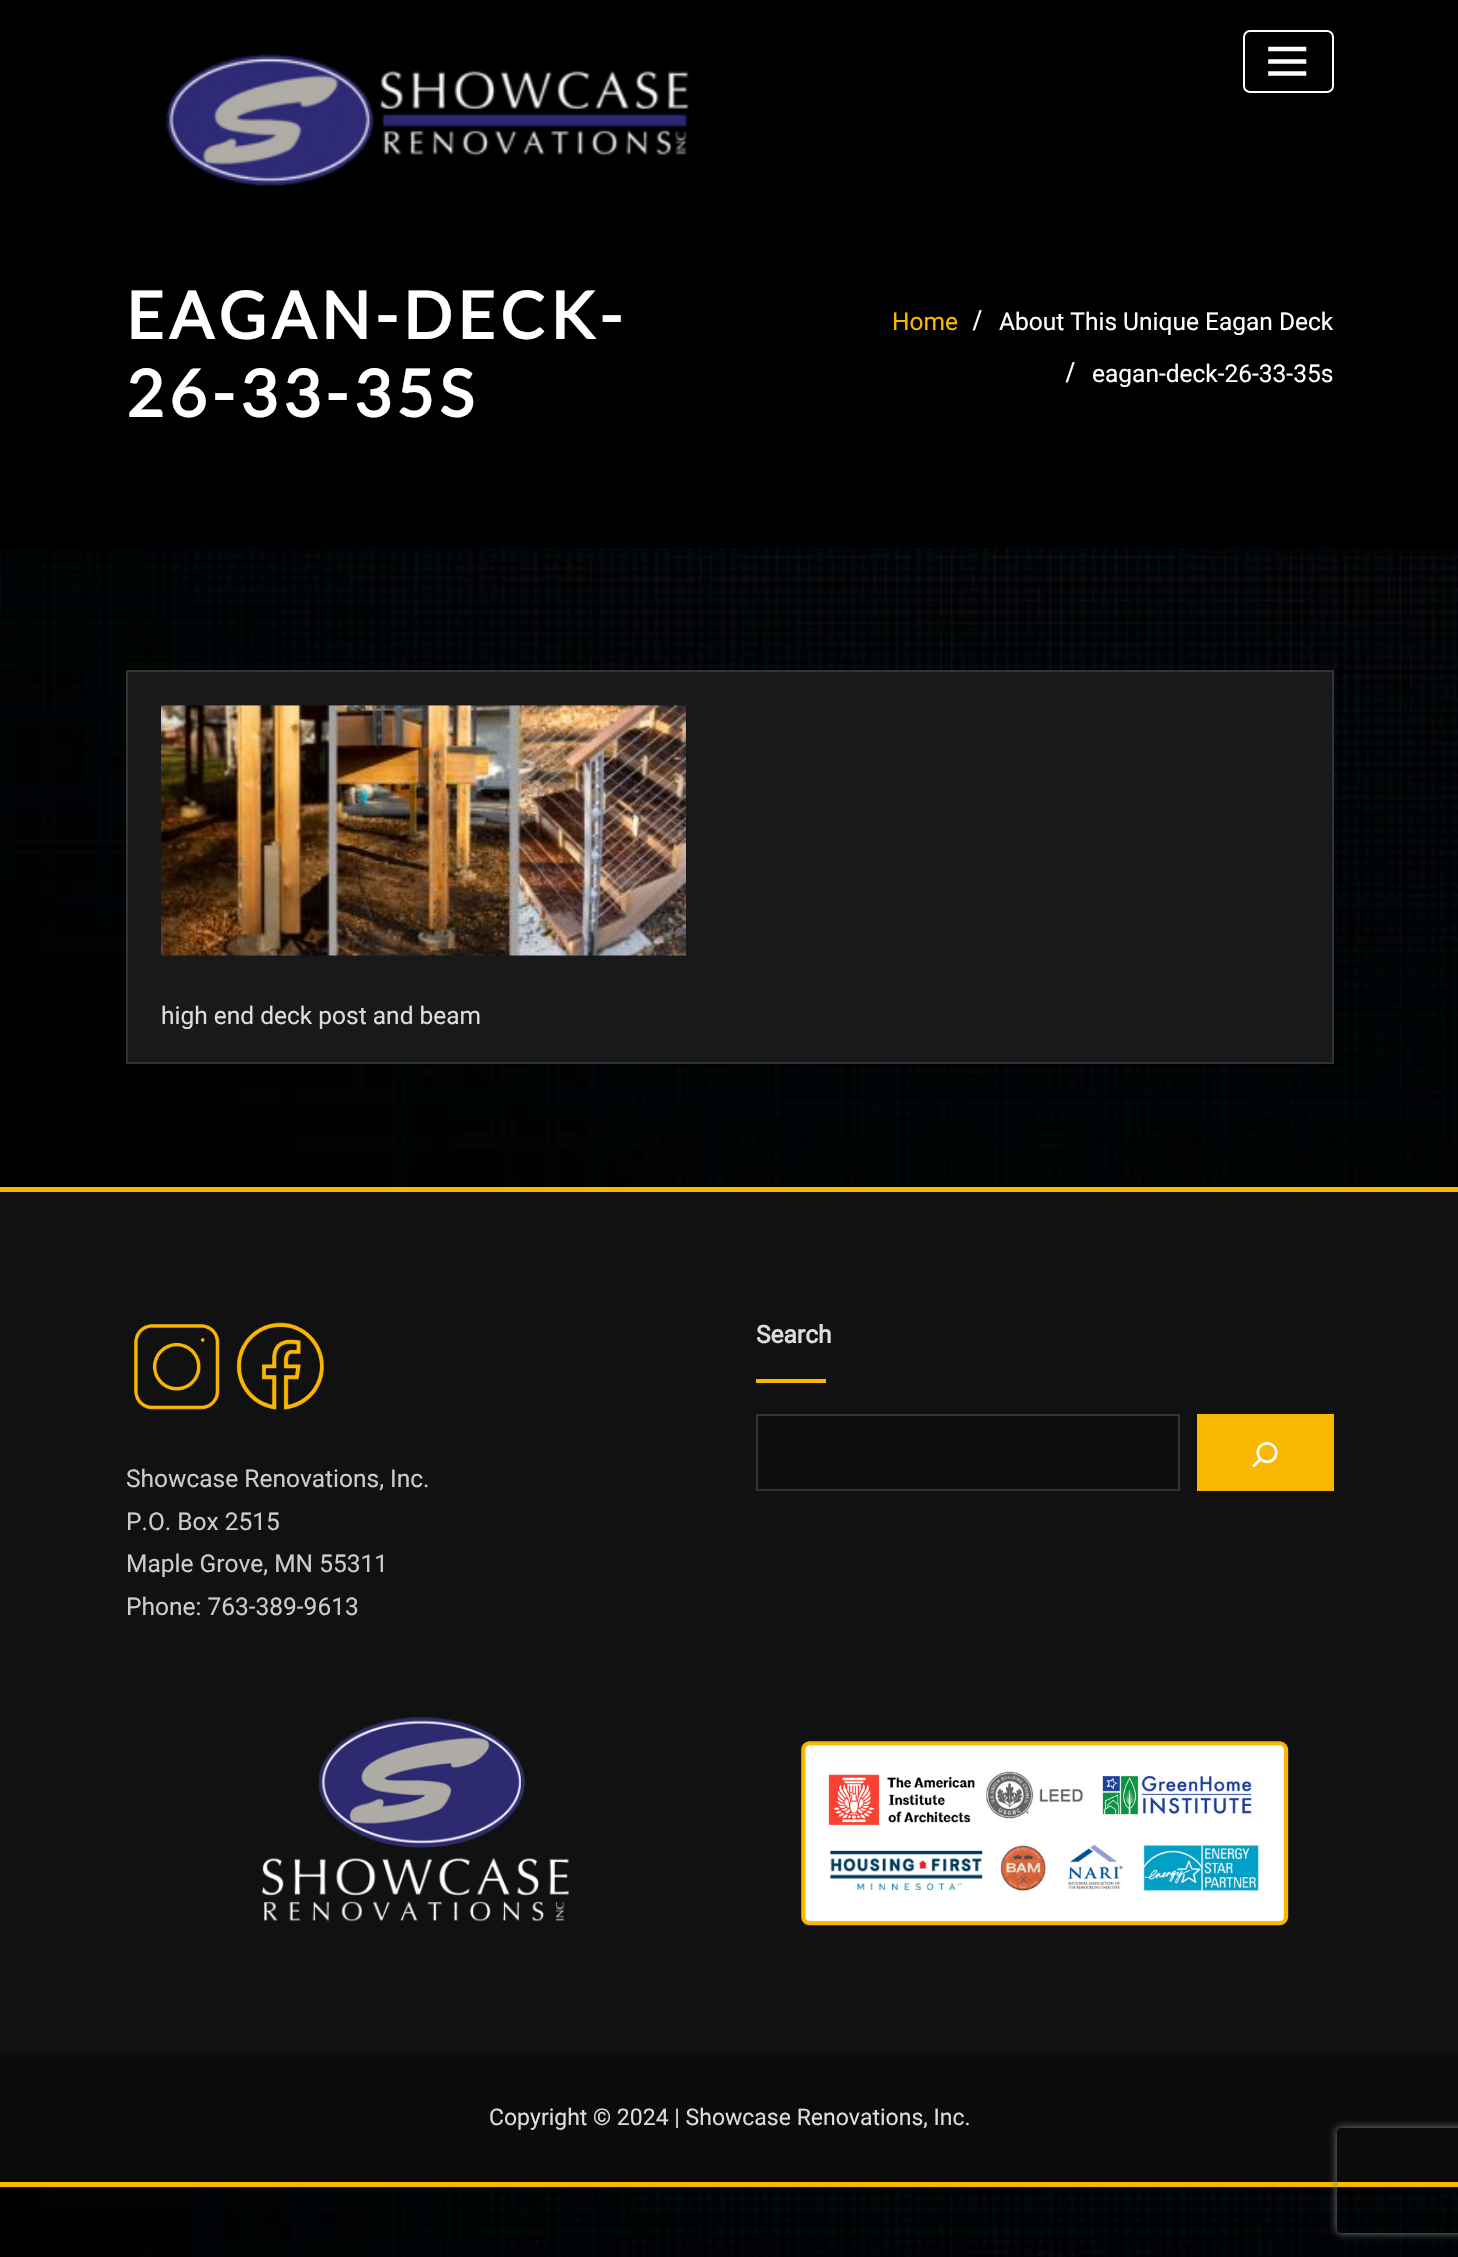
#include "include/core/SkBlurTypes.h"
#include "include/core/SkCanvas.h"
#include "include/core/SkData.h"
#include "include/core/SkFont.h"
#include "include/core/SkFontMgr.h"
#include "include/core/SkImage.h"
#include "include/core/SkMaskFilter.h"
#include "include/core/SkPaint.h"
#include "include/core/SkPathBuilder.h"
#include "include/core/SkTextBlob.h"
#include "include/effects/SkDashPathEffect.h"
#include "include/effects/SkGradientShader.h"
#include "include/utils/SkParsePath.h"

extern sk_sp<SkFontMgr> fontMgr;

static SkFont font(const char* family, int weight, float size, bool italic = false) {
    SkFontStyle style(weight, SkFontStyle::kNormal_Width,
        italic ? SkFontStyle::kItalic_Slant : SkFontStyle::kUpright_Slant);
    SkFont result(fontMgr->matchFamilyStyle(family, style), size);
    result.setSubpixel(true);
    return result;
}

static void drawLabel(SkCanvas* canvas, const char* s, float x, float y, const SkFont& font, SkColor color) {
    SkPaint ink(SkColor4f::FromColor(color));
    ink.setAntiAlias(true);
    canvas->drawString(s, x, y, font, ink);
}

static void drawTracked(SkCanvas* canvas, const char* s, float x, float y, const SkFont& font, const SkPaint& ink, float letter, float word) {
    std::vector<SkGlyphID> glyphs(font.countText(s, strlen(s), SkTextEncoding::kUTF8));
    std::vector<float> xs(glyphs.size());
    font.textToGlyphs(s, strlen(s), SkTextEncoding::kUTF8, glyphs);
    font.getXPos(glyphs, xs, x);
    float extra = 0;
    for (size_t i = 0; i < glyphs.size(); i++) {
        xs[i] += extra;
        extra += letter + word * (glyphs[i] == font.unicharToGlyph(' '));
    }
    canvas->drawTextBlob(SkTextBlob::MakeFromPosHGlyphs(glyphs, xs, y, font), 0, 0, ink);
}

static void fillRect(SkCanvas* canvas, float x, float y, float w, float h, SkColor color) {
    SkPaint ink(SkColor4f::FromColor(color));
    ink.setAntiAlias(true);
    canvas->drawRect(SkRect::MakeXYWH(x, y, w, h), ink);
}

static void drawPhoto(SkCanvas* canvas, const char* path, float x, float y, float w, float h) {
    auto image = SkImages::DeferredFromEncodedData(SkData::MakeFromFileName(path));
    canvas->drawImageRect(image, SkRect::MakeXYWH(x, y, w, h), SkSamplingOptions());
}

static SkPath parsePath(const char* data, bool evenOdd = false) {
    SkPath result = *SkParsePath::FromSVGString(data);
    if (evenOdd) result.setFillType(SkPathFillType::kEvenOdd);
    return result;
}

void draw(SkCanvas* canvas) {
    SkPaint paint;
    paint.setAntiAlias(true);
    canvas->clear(0xFFFFFFFF);
    drawPhoto(canvas, "assets/img1.png", 0, 548, 1458, 1709);
    fillRect(canvas, 0, 0, 1458, 548, 0xFF000000);
    drawPhoto(canvas, "assets/img2.png", 166, 54, 523, 132);
    paint.setStroke(true);
    paint.setStrokeWidth(2);
    paint.setColor(0xFFFFFFFF);
    canvas->drawRoundRect(SkRect::MakeXYWH(1244, 31, 89, 61), 6, 6, paint);
    paint.setStrokeWidth(4.6f);
    paint.setStrokeCap(SkPaint::kSquare_Cap);
    canvas->drawPath(parsePath("M1270.5 49H1304M1270.5 61.5H1304M1270.5 73.5H1304"), paint);
    SkFont font1 = font("Lato", 700, 65);
    paint.setStroke(false);
    drawTracked(canvas, "EAGAN-DECK-", 126, 339, font1, paint, 5.25f, 0);
    drawTracked(canvas, "26-33-35S", 126, 417, font1, paint, 5.25f, 0);
    SkFont font2 = font("Roboto", 400, 24.5f);
    drawLabel(canvas, "Home", 892, 330, font2, 0xFFFAB702);
    SkFont font3 = font("Liberation Serif", 700, 30);
    drawTracked(canvas, "/", 973, 330, font3, paint, 2, 0);
    drawLabel(canvas, "About This Unique Eagan Deck", 999, 330, font2, 0xFFFFFFFF);
    drawTracked(canvas, "/", 1066, 382, font3, paint, 2, 0);
    drawLabel(canvas, "eagan-deck-26-33-35s", 1092, 382, font2, 0xFFFFFFFF);
    drawPhoto(canvas, "assets/img3.png", 1202, 548, 254, 10);
    paint.setColor(0xFF18191B);
    canvas->drawRect(SkRect::MakeXYWH(127, 671, 1206, 392), paint);
    paint.setStroke(true);
    paint.setStrokeWidth(2);
    paint.setStrokeCap(SkPaint::kButt_Cap);
    paint.setColor(0xFF333333);
    canvas->drawRect(SkRect::MakeXYWH(127, 671, 1206, 392), paint);
    drawPhoto(canvas, "assets/img4.png", 161, 705, 525, 251);
    drawLabel(canvas, "high end deck post and beam", 161, 1024, font2, 0xFFDDDDDD);
    fillRect(canvas, 0, 1192, 1458, 996, 0xFF111111);
    fillRect(canvas, 0, 1187, 1458, 5, 0xFFFAB702);
    fillRect(canvas, 0, 2182, 1458, 5, 0xFFFAB702);
    SkFont font4 = font("Roboto", 700, 24.5f);
    drawLabel(canvas, "Search", 756, 1343, font4, 0xFFDDDDDD);
    fillRect(canvas, 756, 1379, 70, 4, 0xFFFAB702);
    paint.setStroke(false);
    paint.setColor(0xFF0E0E0E);
    canvas->drawRect(SkRect::MakeXYWH(757, 1415, 422, 75), paint);
    paint.setStroke(true);
    paint.setColor(0xFF333333);
    canvas->drawRect(SkRect::MakeXYWH(757, 1415, 422, 75), paint);
    paint.setStroke(false);
    paint.setColor(0xFFFAB702);
    canvas->drawRect(SkRect::MakeXYWH(1198, 1415, 135, 75), paint);
    paint.setStroke(true);
    canvas->drawRect(SkRect::MakeXYWH(1198, 1415, 135, 75), paint);
    drawPhoto(canvas, "assets/img5.png", 1252, 1442, 26, 26);
    drawPhoto(canvas, "assets/img6.png", 134, 1324, 86, 86);
    drawPhoto(canvas, "assets/img7.png", 236, 1322, 88, 88);
    drawLabel(canvas, "Showcase Renovations, Inc.", 126, 1487, font2, 0xFFCCCCCC);
    drawLabel(canvas, "P.O. Box 2515", 126, 1530, font2, 0xFFCCCCCC);
    drawLabel(canvas, "Maple Grove, MN 55311", 126, 1572, font2, 0xFFCCCCCC);
    drawLabel(canvas, "Phone: 763-389-9613", 126, 1615, font2, 0xFFCCCCCC);
    drawPhoto(canvas, "assets/img8.png", 261, 1717, 308, 205);
    drawPhoto(canvas, "assets/img9.png", 801, 1741, 488, 185);
    fillRect(canvas, 0, 2055, 1458, 127, 0xFF0B0B0B);
    SkFont font5 = font("Roboto", 400, 23);
    drawLabel(canvas, "Copyright © 2024 | Showcase Renovations, Inc.", 489, 2125, font5, 0xFFDDDDDD);
    canvas->save();
    canvas->clipPath(parsePath("M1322 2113H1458V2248H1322ZM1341 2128H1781C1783 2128 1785 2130 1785 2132V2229C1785 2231 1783 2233 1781 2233H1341C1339 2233 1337 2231 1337 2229V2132C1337 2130 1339 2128 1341 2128Z", true), true);
    paint.setStroke(false);
    paint.setColor(0xFF808080);
    paint.setMaskFilter(SkMaskFilter::MakeBlur(kNormal_SkBlurStyle, 4.5f));
    canvas->drawRoundRect(SkRect::MakeXYWH(1337, 2128, 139, 105), 4, 4, paint);
    paint.setMaskFilter(nullptr);
    canvas->restore();
}
